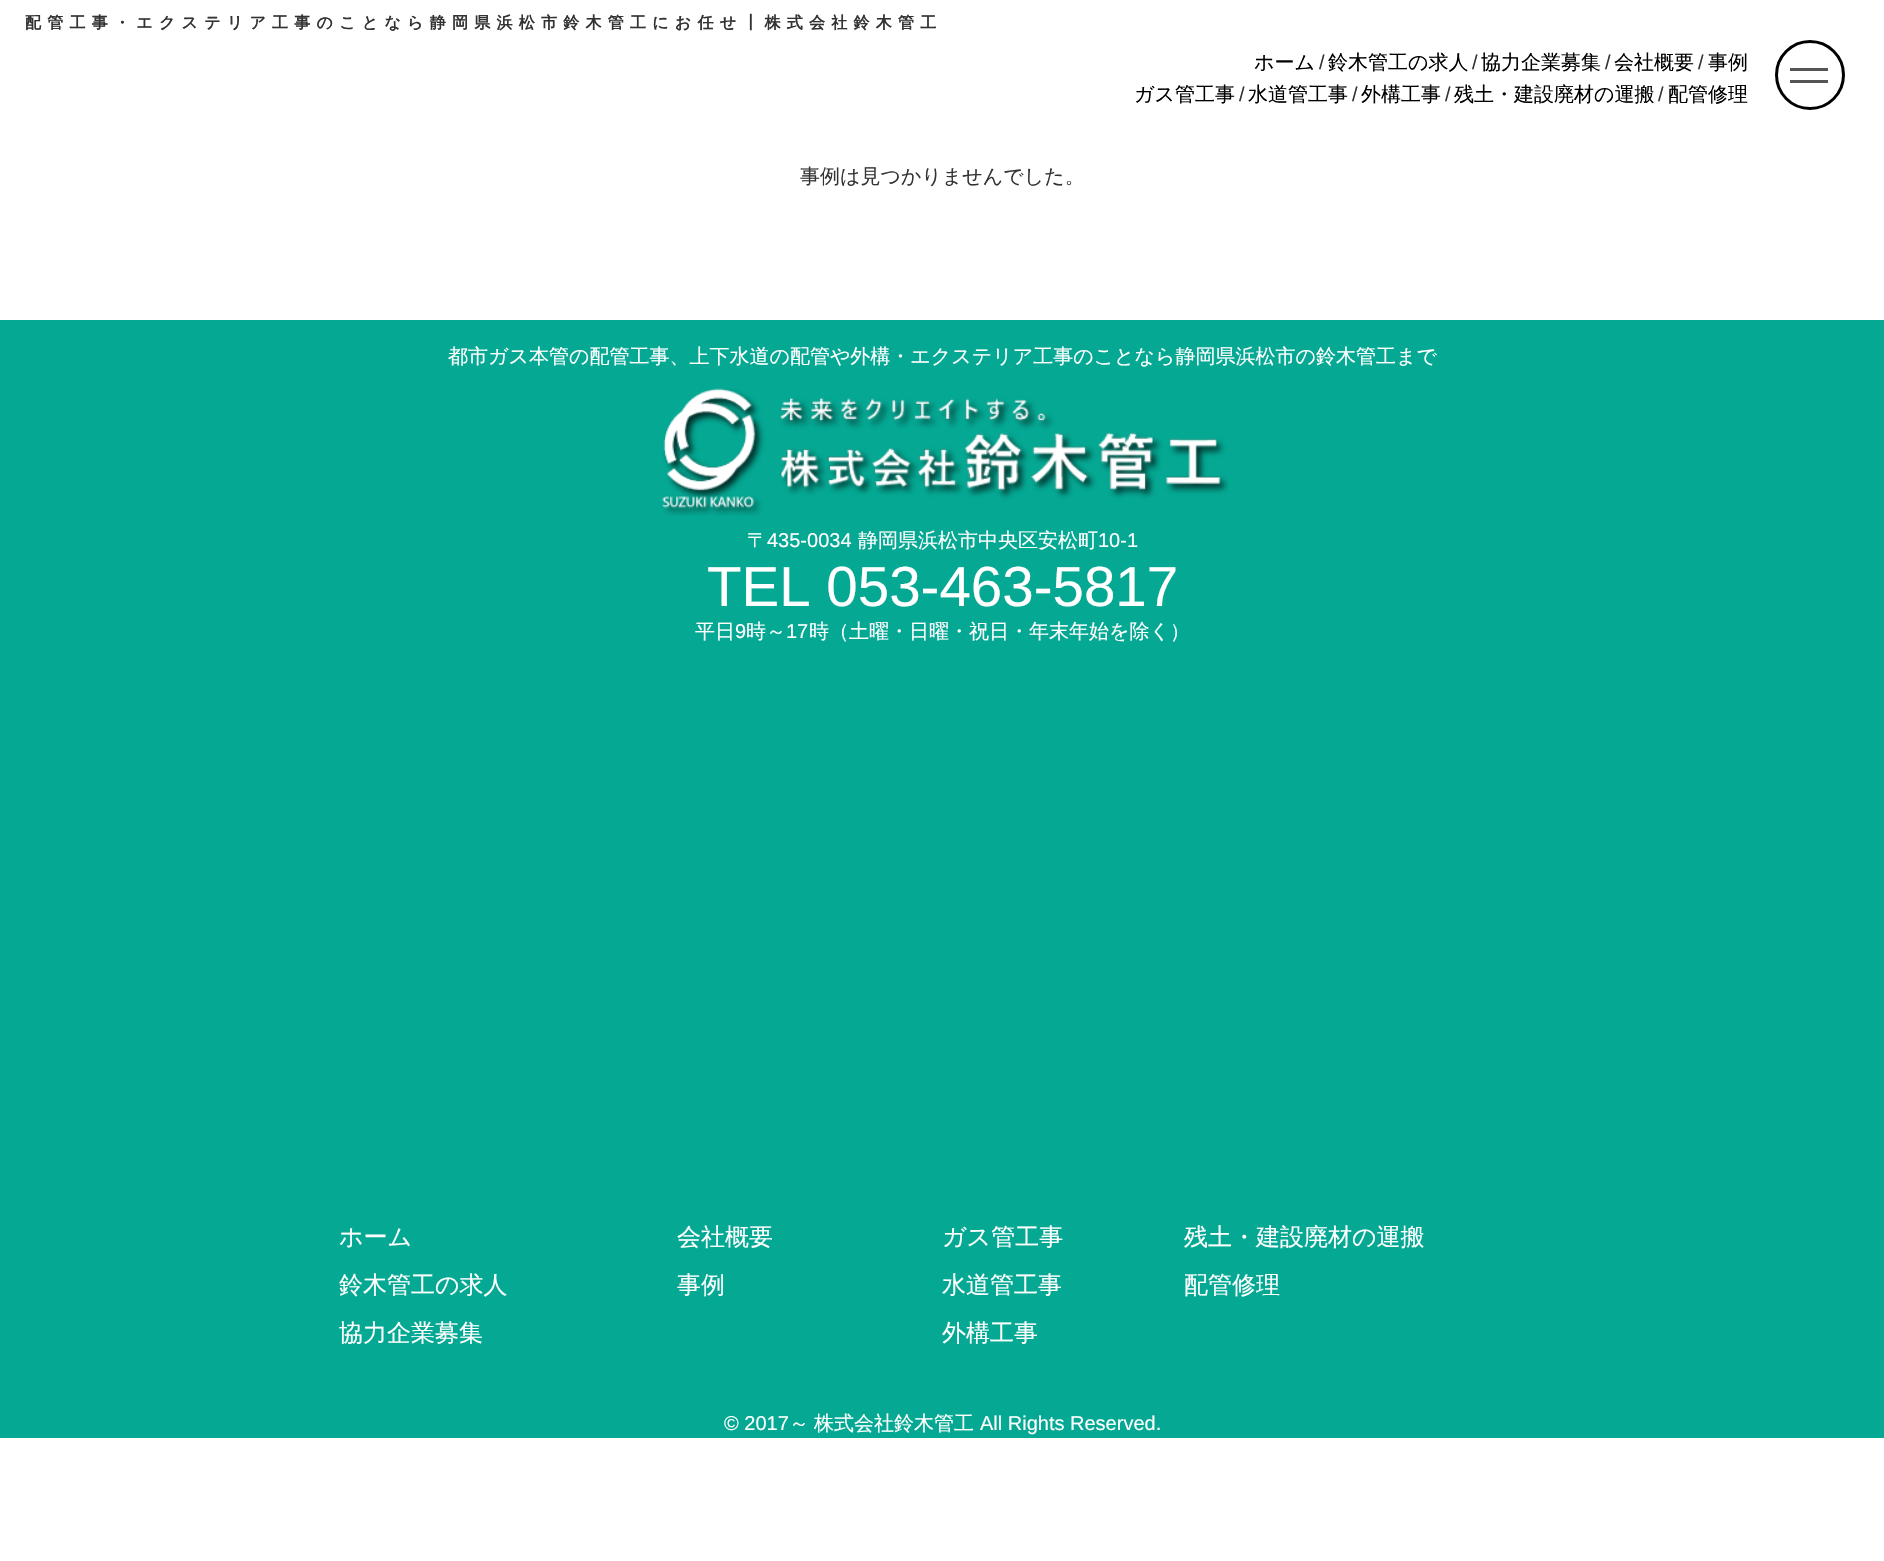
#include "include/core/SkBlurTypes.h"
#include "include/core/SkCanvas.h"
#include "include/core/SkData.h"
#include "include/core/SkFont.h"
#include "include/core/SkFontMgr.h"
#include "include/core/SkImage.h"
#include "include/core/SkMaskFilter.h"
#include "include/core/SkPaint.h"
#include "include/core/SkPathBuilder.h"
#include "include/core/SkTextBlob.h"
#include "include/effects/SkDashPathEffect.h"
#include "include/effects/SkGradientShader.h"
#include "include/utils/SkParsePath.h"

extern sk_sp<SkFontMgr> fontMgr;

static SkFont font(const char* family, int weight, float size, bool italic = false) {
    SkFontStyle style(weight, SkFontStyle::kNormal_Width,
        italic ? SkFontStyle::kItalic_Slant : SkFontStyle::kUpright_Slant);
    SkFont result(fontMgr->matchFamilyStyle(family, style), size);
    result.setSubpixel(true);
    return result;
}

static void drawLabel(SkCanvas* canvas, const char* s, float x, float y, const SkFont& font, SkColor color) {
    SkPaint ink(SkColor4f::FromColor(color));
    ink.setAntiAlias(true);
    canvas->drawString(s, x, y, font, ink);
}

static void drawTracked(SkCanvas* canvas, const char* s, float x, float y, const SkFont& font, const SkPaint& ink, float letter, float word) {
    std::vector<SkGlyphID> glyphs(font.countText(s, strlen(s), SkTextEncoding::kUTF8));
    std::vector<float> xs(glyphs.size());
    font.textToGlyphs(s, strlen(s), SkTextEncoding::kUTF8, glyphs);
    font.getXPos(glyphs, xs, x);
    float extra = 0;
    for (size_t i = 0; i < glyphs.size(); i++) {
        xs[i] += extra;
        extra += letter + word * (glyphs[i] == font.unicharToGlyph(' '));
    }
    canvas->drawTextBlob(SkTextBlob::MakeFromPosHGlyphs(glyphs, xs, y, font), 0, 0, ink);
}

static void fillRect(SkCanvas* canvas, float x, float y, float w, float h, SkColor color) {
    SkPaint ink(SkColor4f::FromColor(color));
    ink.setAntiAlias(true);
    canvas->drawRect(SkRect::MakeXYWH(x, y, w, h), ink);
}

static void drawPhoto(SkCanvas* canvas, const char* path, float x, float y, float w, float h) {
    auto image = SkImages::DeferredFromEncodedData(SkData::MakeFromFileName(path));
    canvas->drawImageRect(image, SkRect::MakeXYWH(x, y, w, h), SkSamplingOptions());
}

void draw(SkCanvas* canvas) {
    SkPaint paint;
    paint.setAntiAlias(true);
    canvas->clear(0xFFFFFFFF);
    SkFont font1 = font("WenQuanYi Zen Hei", 700, 16);
    paint.setColor(0xFF333333);
    drawTracked(canvas, "配管工事・エクステリア工事のことなら静岡県浜松市鈴木管工にお任せ┃株式会社鈴木管工", 25, 28, font1, paint, 6.25f, 0);
    SkFont font2 = font("WenQuanYi Zen Hei", 500, 20);
    drawLabel(canvas, "ホーム", 1254, 69, font2, 0xFF000000);
    SkFont font3 = font("Liberation Sans", 400, 20);
    drawLabel(canvas, "/", 1319, 69, font3, 0xFF333333);
    drawLabel(canvas, "鈴木管工の求人", 1328, 69, font2, 0xFF000000);
    drawLabel(canvas, "/", 1472, 69, font3, 0xFF333333);
    drawLabel(canvas, "協力企業募集", 1481, 69, font2, 0xFF000000);
    drawLabel(canvas, "/", 1605, 69, font3, 0xFF333333);
    drawLabel(canvas, "会社概要", 1614, 69, font2, 0xFF000000);
    drawLabel(canvas, "/", 1698, 69, font3, 0xFF333333);
    drawLabel(canvas, "事例", 1708, 69, font2, 0xFF000000);
    drawLabel(canvas, "ガス管工事", 1134, 101, font2, 0xFF000000);
    drawLabel(canvas, "/", 1239, 101, font3, 0xFF333333);
    drawLabel(canvas, "水道管工事", 1248, 101, font2, 0xFF000000);
    drawLabel(canvas, "/", 1352, 101, font3, 0xFF333333);
    drawLabel(canvas, "外構工事", 1361, 101, font2, 0xFF000000);
    drawLabel(canvas, "/", 1445, 101, font3, 0xFF333333);
    drawLabel(canvas, "残土・建設廃材の運搬", 1454, 101, font2, 0xFF000000);
    drawLabel(canvas, "/", 1658, 101, font3, 0xFF333333);
    drawLabel(canvas, "配管修理", 1668, 101, font2, 0xFF000000);
    paint.setStroke(true);
    paint.setStrokeWidth(3);
    paint.setColor(0xFF000000);
    canvas->drawCircle(1810, 75, 33.5f, paint);
    fillRect(canvas, 1790, 68, 38, 3, 0xFF555555);
    fillRect(canvas, 1790, 80, 38, 3, 0xFF555555);
    drawLabel(canvas, "事例は見つかりませんでした。", 800, 183, font2, 0xFF333333);
    fillRect(canvas, 0, 320, 1884, 1118, 0xFF04A893);
    drawLabel(canvas, "都市ガス本管の配管工事、上下水道の配管や外構・エクステリア工事のことなら静岡県浜松市の鈴木管工まで", 448, 363, font2, 0xFFFFFFFF);
    drawPhoto(canvas, "assets/img1.png", 662, 388, 567, 128);
    drawLabel(canvas, "〒", 747, 547, font2, 0xFFFFFFFF);
    drawLabel(canvas, "435-0034", 767, 547, font3, 0xFFFFFFFF);
    drawLabel(canvas, "静岡県浜松市中央区安松町", 858, 547, font2, 0xFFFFFFFF);
    drawLabel(canvas, "10-1", 1098, 547, font3, 0xFFFFFFFF);
    SkFont font4 = font("Liberation Sans", 400, 56.5f);
    drawLabel(canvas, "TEL 053-463-5817", 707, 606, font4, 0xFFFFFFFF);
    drawLabel(canvas, "平日", 695, 638, font2, 0xFFFFFFFF);
    drawLabel(canvas, "9", 735, 638, font3, 0xFFFFFFFF);
    drawLabel(canvas, "時～", 746, 638, font2, 0xFFFFFFFF);
    drawLabel(canvas, "17", 786, 638, font3, 0xFFFFFFFF);
    drawLabel(canvas, "時（土曜・日曜・祝日・年末年始を除く）", 809, 638, font2, 0xFFFFFFFF);
    SkFont font5 = font("WenQuanYi Zen Hei", 500, 24);
    drawLabel(canvas, "ホーム", 339, 1245, font5, 0xFFFFFFFF);
    drawLabel(canvas, "会社概要", 677, 1245, font5, 0xFFFFFFFF);
    drawLabel(canvas, "鈴木管工の求人", 339, 1293, font5, 0xFFFFFFFF);
    drawLabel(canvas, "事例", 677, 1293, font5, 0xFFFFFFFF);
    drawLabel(canvas, "協力企業募集", 339, 1341, font5, 0xFFFFFFFF);
    drawLabel(canvas, "ガス管工事", 942, 1245, font5, 0xFFFFFFFF);
    drawLabel(canvas, "残土・建設廃材の運搬", 1184, 1245, font5, 0xFFFFFFFF);
    drawLabel(canvas, "水道管工事", 942, 1293, font5, 0xFFFFFFFF);
    drawLabel(canvas, "配管修理", 1184, 1293, font5, 0xFFFFFFFF);
    drawLabel(canvas, "外構工事", 942, 1341, font5, 0xFFFFFFFF);
    drawLabel(canvas, "© 2017", 724, 1430, font3, 0xFFFFFFFF);
    drawLabel(canvas, "～", 789, 1430, font2, 0xFFFFFFFF);
    drawLabel(canvas, "株式会社鈴木管工", 814, 1430, font2, 0xFFFFFFFF);
    drawLabel(canvas, "All Rights Reserved.", 980, 1430, font3, 0xFFFFFFFF);
}
